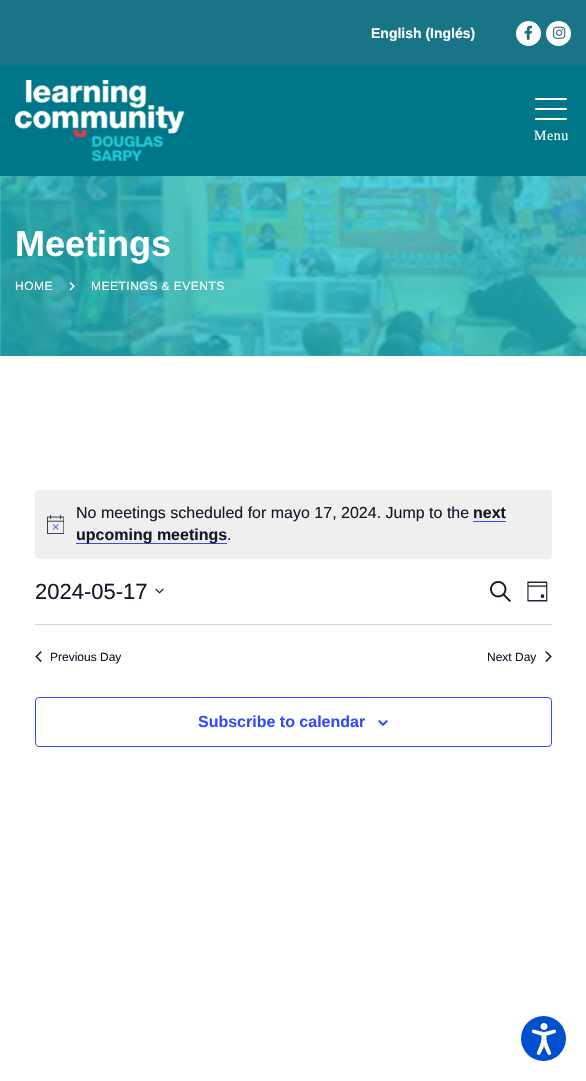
#include "include/core/SkBlurTypes.h"
#include "include/core/SkCanvas.h"
#include "include/core/SkData.h"
#include "include/core/SkFont.h"
#include "include/core/SkFontMgr.h"
#include "include/core/SkImage.h"
#include "include/core/SkMaskFilter.h"
#include "include/core/SkPaint.h"
#include "include/core/SkPathBuilder.h"
#include "include/core/SkTextBlob.h"
#include "include/effects/SkDashPathEffect.h"
#include "include/effects/SkGradientShader.h"
#include "include/utils/SkParsePath.h"

extern sk_sp<SkFontMgr> fontMgr;

static SkFont font(const char* family, int weight, float size, bool italic = false) {
    SkFontStyle style(weight, SkFontStyle::kNormal_Width,
        italic ? SkFontStyle::kItalic_Slant : SkFontStyle::kUpright_Slant);
    SkFont result(fontMgr->matchFamilyStyle(family, style), size);
    result.setSubpixel(true);
    return result;
}

static void drawLabel(SkCanvas* canvas, const char* s, float x, float y, const SkFont& font, SkColor color) {
    SkPaint ink(SkColor4f::FromColor(color));
    ink.setAntiAlias(true);
    canvas->drawString(s, x, y, font, ink);
}

static void drawTracked(SkCanvas* canvas, const char* s, float x, float y, const SkFont& font, const SkPaint& ink, float letter, float word) {
    std::vector<SkGlyphID> glyphs(font.countText(s, strlen(s), SkTextEncoding::kUTF8));
    std::vector<float> xs(glyphs.size());
    font.textToGlyphs(s, strlen(s), SkTextEncoding::kUTF8, glyphs);
    font.getXPos(glyphs, xs, x);
    float extra = 0;
    for (size_t i = 0; i < glyphs.size(); i++) {
        xs[i] += extra;
        extra += letter + word * (glyphs[i] == font.unicharToGlyph(' '));
    }
    canvas->drawTextBlob(SkTextBlob::MakeFromPosHGlyphs(glyphs, xs, y, font), 0, 0, ink);
}

static void fillRect(SkCanvas* canvas, float x, float y, float w, float h, SkColor color) {
    SkPaint ink(SkColor4f::FromColor(color));
    ink.setAntiAlias(true);
    canvas->drawRect(SkRect::MakeXYWH(x, y, w, h), ink);
}

static void fillRRect(SkCanvas* canvas, float x, float y, float w, float h, float radius, SkColor color) {
    SkPaint ink(SkColor4f::FromColor(color));
    ink.setAntiAlias(true);
    canvas->drawRoundRect(SkRect::MakeXYWH(x, y, w, h), radius, radius, ink);
}

static void drawPhoto(SkCanvas* canvas, const char* path, float x, float y, float w, float h) {
    auto image = SkImages::DeferredFromEncodedData(SkData::MakeFromFileName(path));
    canvas->drawImageRect(image, SkRect::MakeXYWH(x, y, w, h), SkSamplingOptions());
}

void draw(SkCanvas* canvas) {
    SkPaint paint;
    paint.setAntiAlias(true);
    canvas->clear(0xFFFFFFFF);
    fillRect(canvas, 0, 0, 586, 65, 0xFF177587);
    SkFont font1 = font("Liberation Sans", 700, 14);
    drawLabel(canvas, "English (Inglés)", 371, 38, font1, 0xFFFFFFFF);
    paint.setColor(0xFFFFFFFF);
    canvas->drawCircle(528.5f, 33.5f, 12.5f, paint);
    drawPhoto(canvas, "assets/img1.png", 524, 25, 9, 15);
    canvas->drawCircle(558.5f, 33.5f, 12.5f, paint);
    drawPhoto(canvas, "assets/img2.png", 553, 26, 13, 13);
    fillRect(canvas, 0, 65, 586, 111, 0xFF007788);
    drawPhoto(canvas, "assets/img3.png", 15, 80, 170, 81);
    drawPhoto(canvas, "assets/img4.png", 535, 98, 32, 22);
    SkFont font2 = font("Liberation Serif", 400, 14);
    drawTracked(canvas, "Menu", 534, 140, font2, paint, 0.5f, 0);
    drawPhoto(canvas, "assets/img5.png", 0, 176, 586, 180);
    SkFont font3 = font("Liberation Sans", 700, 36);
    drawLabel(canvas, "Meetings", 15, 256, font3, 0xFFFFFFFF);
    SkFont font4 = font("Liberation Sans", 400, 12);
    drawTracked(canvas, "HOME", 15, 290, font4, paint, 0.5f, 0);
    drawPhoto(canvas, "assets/img6.png", 69, 282, 6, 9);
    drawTracked(canvas, "MEETINGS & EVENTS", 91, 290, font4, paint, 0.5f, 0);
    fillRRect(canvas, 35, 490, 517, 69, 4, 0xFFEFEFF0);
    drawPhoto(canvas, "assets/img7.png", 47, 515, 17, 19);
    SkFont font5 = font("Liberation Sans", 400, 16);
    drawLabel(canvas, "No meetings scheduled for mayo 17, 2024. Jump to the", 76, 518, font5, 0xFF141827);
    SkFont font6 = font("Liberation Sans", 700, 16);
    drawLabel(canvas, "next", 473, 518, font6, 0xFF141827);
    fillRect(canvas, 473, 521, 33, 1, 0xFF334AFF);
    fillRect(canvas, 76, 543, 151, 1, 0xFF334AFF);
    drawLabel(canvas, "upcoming meetings", 76, 540, font6, 0xFF141827);
    drawLabel(canvas, ".", 227, 540, font5, 0xFF141827);
    SkFont font7 = font("Liberation Sans", 400, 22);
    drawLabel(canvas, "2024-05-17", 35, 599, font7, 0xFF141827);
    drawPhoto(canvas, "assets/img8.png", 155, 588, 9, 6);
    drawPhoto(canvas, "assets/img9.png", 490, 581, 21, 21);
    drawPhoto(canvas, "assets/img10.png", 527, 581, 21, 21);
    fillRect(canvas, 35, 624, 517, 1, 0xFFD5D5D5);
    drawPhoto(canvas, "assets/img11.png", 35, 651, 7, 11);
    drawLabel(canvas, "Previous Day", 50, 661, font4, 0xFF141827);
    drawLabel(canvas, "Next Day", 487, 661, font4, 0xFF141827);
    drawPhoto(canvas, "assets/img12.png", 545, 651, 7, 11);
    paint.setStroke(true);
    paint.setStrokeWidth(1);
    paint.setColor(0xFF334AFF);
    canvas->drawRoundRect(SkRect::MakeXYWH(35.5f, 697.5f, 516, 49), 3.5f, 3.5f, paint);
    drawLabel(canvas, "Subscribe to calendar", 198, 727, font6, 0xFF334AFF);
    drawPhoto(canvas, "assets/img13.png", 378, 720, 10, 6);
    paint.setStroke(false);
    paint.setColor(0xFF004FCE);
    canvas->drawCircle(543.5f, 1038.5f, 22.5f, paint);
    drawPhoto(canvas, "assets/img14.png", 531, 1023, 26, 32);
}
